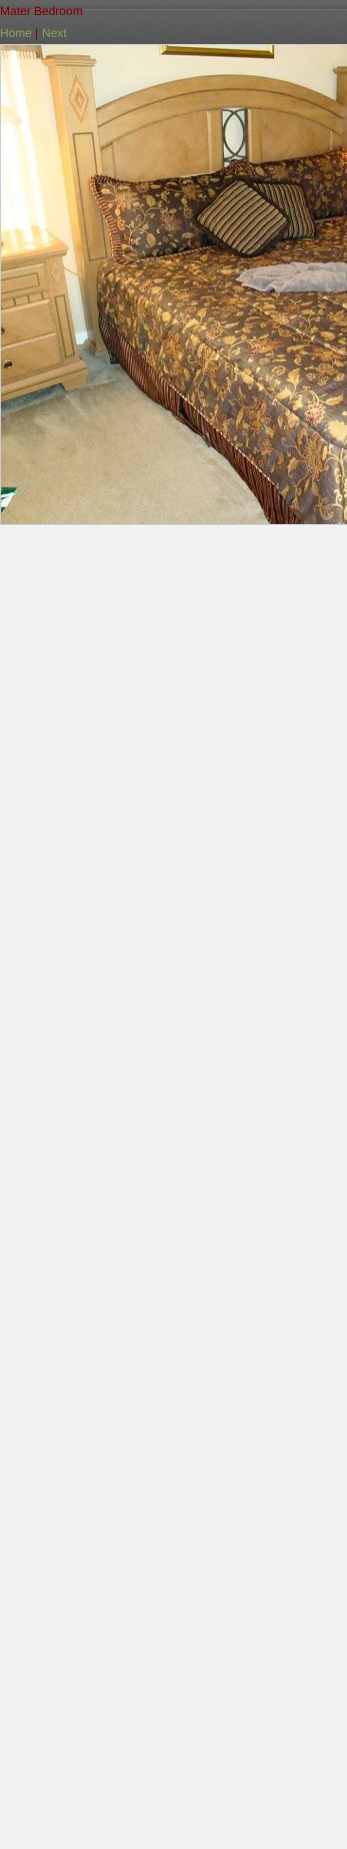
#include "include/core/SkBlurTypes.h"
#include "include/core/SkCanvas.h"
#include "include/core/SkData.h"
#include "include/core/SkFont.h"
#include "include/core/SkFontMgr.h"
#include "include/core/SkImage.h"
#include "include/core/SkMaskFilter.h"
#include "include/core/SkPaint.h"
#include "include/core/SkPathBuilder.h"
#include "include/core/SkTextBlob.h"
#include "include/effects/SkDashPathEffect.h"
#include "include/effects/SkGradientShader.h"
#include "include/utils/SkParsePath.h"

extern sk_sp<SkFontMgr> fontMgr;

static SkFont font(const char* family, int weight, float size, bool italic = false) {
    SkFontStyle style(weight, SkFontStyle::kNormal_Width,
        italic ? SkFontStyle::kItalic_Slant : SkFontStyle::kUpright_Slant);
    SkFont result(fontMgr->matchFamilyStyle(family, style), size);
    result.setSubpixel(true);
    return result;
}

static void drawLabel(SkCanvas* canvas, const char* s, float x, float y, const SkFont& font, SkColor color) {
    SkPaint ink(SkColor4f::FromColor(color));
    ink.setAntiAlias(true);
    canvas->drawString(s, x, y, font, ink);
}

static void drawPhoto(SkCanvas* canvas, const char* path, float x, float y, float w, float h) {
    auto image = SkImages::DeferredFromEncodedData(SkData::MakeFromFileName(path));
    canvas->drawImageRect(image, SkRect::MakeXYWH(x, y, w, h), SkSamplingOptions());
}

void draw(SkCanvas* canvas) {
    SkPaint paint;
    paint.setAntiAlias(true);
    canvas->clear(0xFFF2F2F2);
    drawPhoto(canvas, "assets/img1.png", 0, 0, 347, 44);
    SkFont font1 = font("Liberation Sans", 400, 12);
    drawLabel(canvas, "Mater Bedroom", 0, 15, font1, 0xFF800000);
    drawLabel(canvas, "Home", 0, 37, font1, 0xFF7FA256);
    drawLabel(canvas, "|", 35, 37, font1, 0xFF800000);
    drawLabel(canvas, "Next", 42, 37, font1, 0xFF7FA256);
    paint.setStroke(true);
    paint.setStrokeWidth(1);
    paint.setColor(0xFFCCCCCC);
    canvas->drawRect(SkRect::MakeXYWH(0.5f, 44.5f, 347, 480), paint);
    drawPhoto(canvas, "assets/img2.png", 1, 45, 346, 479);
}
